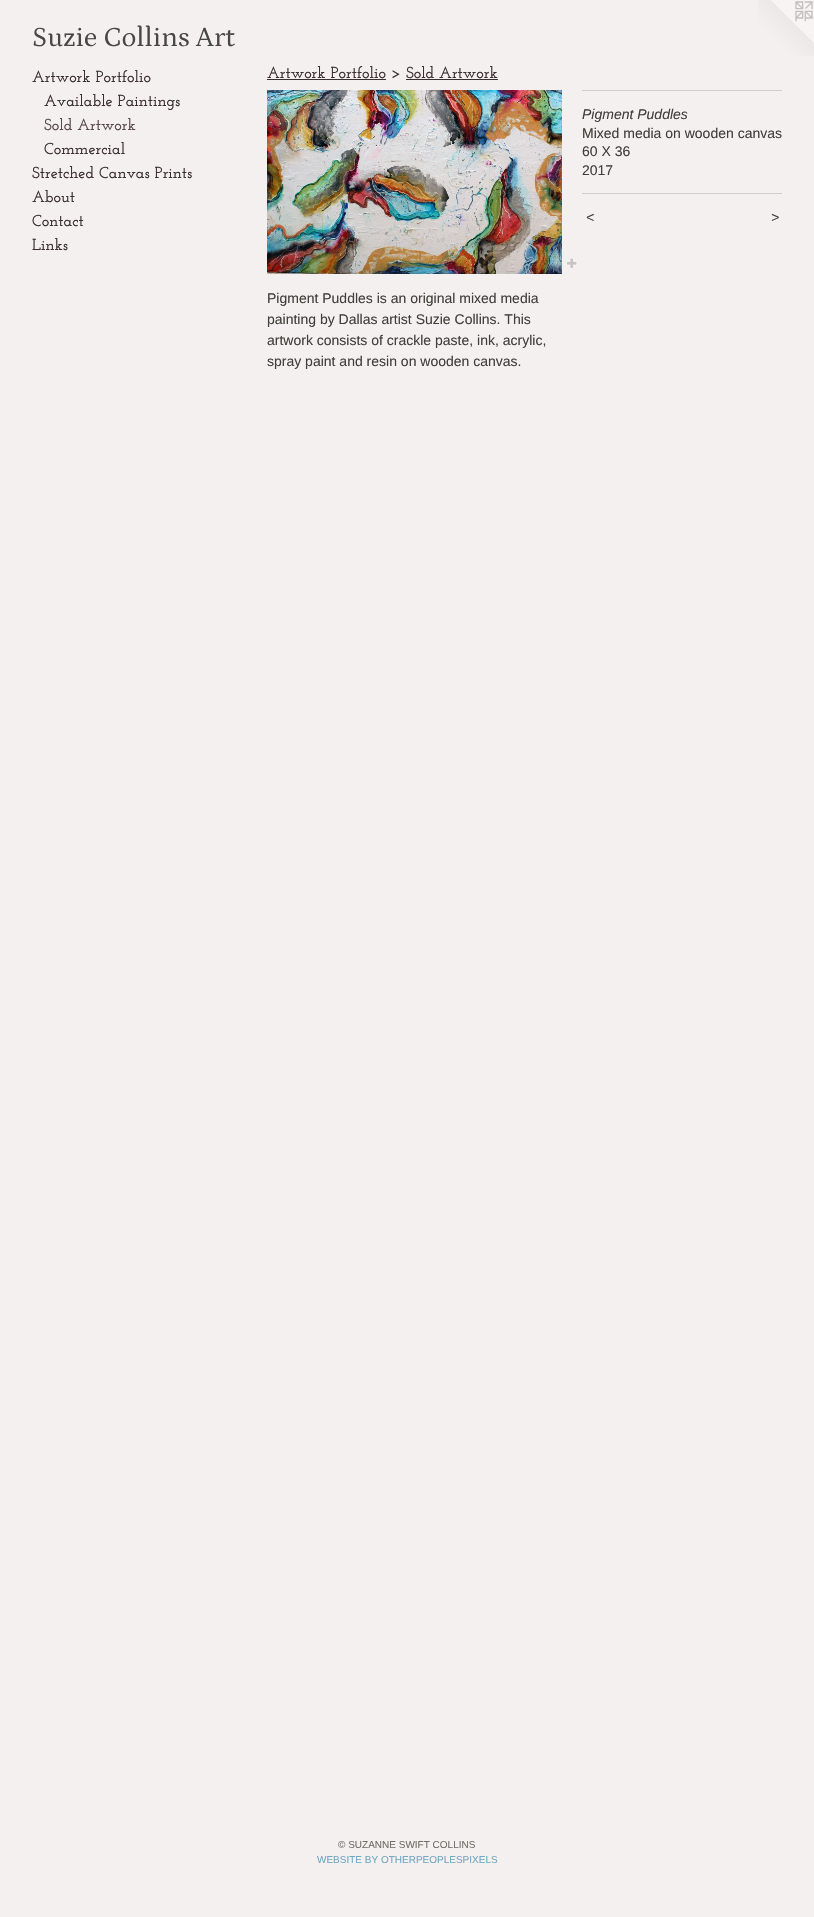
#include "include/core/SkBlurTypes.h"
#include "include/core/SkCanvas.h"
#include "include/core/SkData.h"
#include "include/core/SkFont.h"
#include "include/core/SkFontMgr.h"
#include "include/core/SkImage.h"
#include "include/core/SkMaskFilter.h"
#include "include/core/SkPaint.h"
#include "include/core/SkPathBuilder.h"
#include "include/core/SkTextBlob.h"
#include "include/effects/SkDashPathEffect.h"
#include "include/effects/SkGradientShader.h"
#include "include/utils/SkParsePath.h"

extern sk_sp<SkFontMgr> fontMgr;

static SkFont font(const char* family, int weight, float size, bool italic = false) {
    SkFontStyle style(weight, SkFontStyle::kNormal_Width,
        italic ? SkFontStyle::kItalic_Slant : SkFontStyle::kUpright_Slant);
    SkFont result(fontMgr->matchFamilyStyle(family, style), size);
    result.setSubpixel(true);
    return result;
}

static void drawLabel(SkCanvas* canvas, const char* s, float x, float y, const SkFont& font, SkColor color) {
    SkPaint ink(SkColor4f::FromColor(color));
    ink.setAntiAlias(true);
    canvas->drawString(s, x, y, font, ink);
}

static void drawTracked(SkCanvas* canvas, const char* s, float x, float y, const SkFont& font, const SkPaint& ink, float letter, float word) {
    std::vector<SkGlyphID> glyphs(font.countText(s, strlen(s), SkTextEncoding::kUTF8));
    std::vector<float> xs(glyphs.size());
    font.textToGlyphs(s, strlen(s), SkTextEncoding::kUTF8, glyphs);
    font.getXPos(glyphs, xs, x);
    float extra = 0;
    for (size_t i = 0; i < glyphs.size(); i++) {
        xs[i] += extra;
        extra += letter + word * (glyphs[i] == font.unicharToGlyph(' '));
    }
    canvas->drawTextBlob(SkTextBlob::MakeFromPosHGlyphs(glyphs, xs, y, font), 0, 0, ink);
}

static void fillRect(SkCanvas* canvas, float x, float y, float w, float h, SkColor color) {
    SkPaint ink(SkColor4f::FromColor(color));
    ink.setAntiAlias(true);
    canvas->drawRect(SkRect::MakeXYWH(x, y, w, h), ink);
}

static void drawPhoto(SkCanvas* canvas, const char* path, float x, float y, float w, float h) {
    auto image = SkImages::DeferredFromEncodedData(SkData::MakeFromFileName(path));
    canvas->drawImageRect(image, SkRect::MakeXYWH(x, y, w, h), SkSamplingOptions());
}

void draw(SkCanvas* canvas) {
    SkPaint paint;
    paint.setAntiAlias(true);
    canvas->clear(0xFFF5F0F0);
    SkFont font1 = font("Petrona", 400, 28);
    drawLabel(canvas, "Suzie Collins Art", 32, 46, font1, 0xFF474747);
    drawPhoto(canvas, "assets/img1.png", 758, 0, 56, 56);
    SkFont font2 = font("Josefin Slab", 100, 16);
    drawLabel(canvas, "Artwork Portfolio", 32, 82, font2, 0xFF3B3030);
    drawLabel(canvas, "Available Paintings", 44, 106, font2, 0xFF3B3030);
    drawLabel(canvas, "Sold Artwork", 44, 130, font2, 0xFF574747);
    drawLabel(canvas, "Commercial", 44, 154, font2, 0xFF3B3030);
    drawLabel(canvas, "Stretched Canvas Prints", 32, 178, font2, 0xFF3B3030);
    drawLabel(canvas, "About", 32, 202, font2, 0xFF3B3030);
    drawLabel(canvas, "Contact", 32, 226, font2, 0xFF3B3030);
    drawLabel(canvas, "Links", 32, 250, font2, 0xFF3B3030);
    drawLabel(canvas, "Artwork Portfolio > Sold Artwork", 267, 78, font2, 0xFF3B3030);
    fillRect(canvas, 267, 79, 119, 1, 0xFF3B3030);
    fillRect(canvas, 406, 79, 92, 1, 0xFF3B3030);
    drawPhoto(canvas, "assets/img2.png", 267, 90, 295, 184);
    drawPhoto(canvas, "assets/img3.png", 567, 258, 10, 10);
    fillRect(canvas, 582, 90, 200, 1, 0xFFD1CDCC);
    SkFont font3 = font("Liberation Sans", 400, 14, true);
    drawLabel(canvas, "Pigment Puddles", 582, 119, font3, 0xFF3F403A);
    SkFont font4 = font("Liberation Sans", 400, 14);
    drawLabel(canvas, "Mixed media on wooden canvas", 582, 138, font4, 0xFF3F403A);
    drawLabel(canvas, "60 X 36", 582, 156, font4, 0xFF3F403A);
    drawLabel(canvas, "2017", 582, 175, font4, 0xFF3F403A);
    fillRect(canvas, 582, 193, 200, 1, 0xFFD1CDCC);
    paint.setColor(0xFF3F403A);
    drawTracked(canvas, "<", 586, 222, font3, paint, 1, 0);
    drawTracked(canvas, ">", 771, 222, font3, paint, 1, 0);
    drawLabel(canvas, "Pigment Puddles is an original mixed media", 267, 303, font4, 0xFF3F403A);
    drawLabel(canvas, "painting by Dallas artist Suzie Collins. This", 267, 324, font4, 0xFF3F403A);
    drawLabel(canvas, "artwork consists of crackle paste, ink, acrylic,", 267, 345, font4, 0xFF3F403A);
    drawLabel(canvas, "spray paint and resin on wooden canvas.", 267, 366, font4, 0xFF3F403A);
    SkFont font5 = font("Liberation Sans", 400, 10);
    drawLabel(canvas, "© SUZANNE SWIFT COLLINS", 338, 1848, font5, 0xFF6F6F67);
    drawLabel(canvas, "WEBSITE BY OTHERPEOPLESPIXELS", 317, 1863, font5, 0xFF70A8C0);
}
